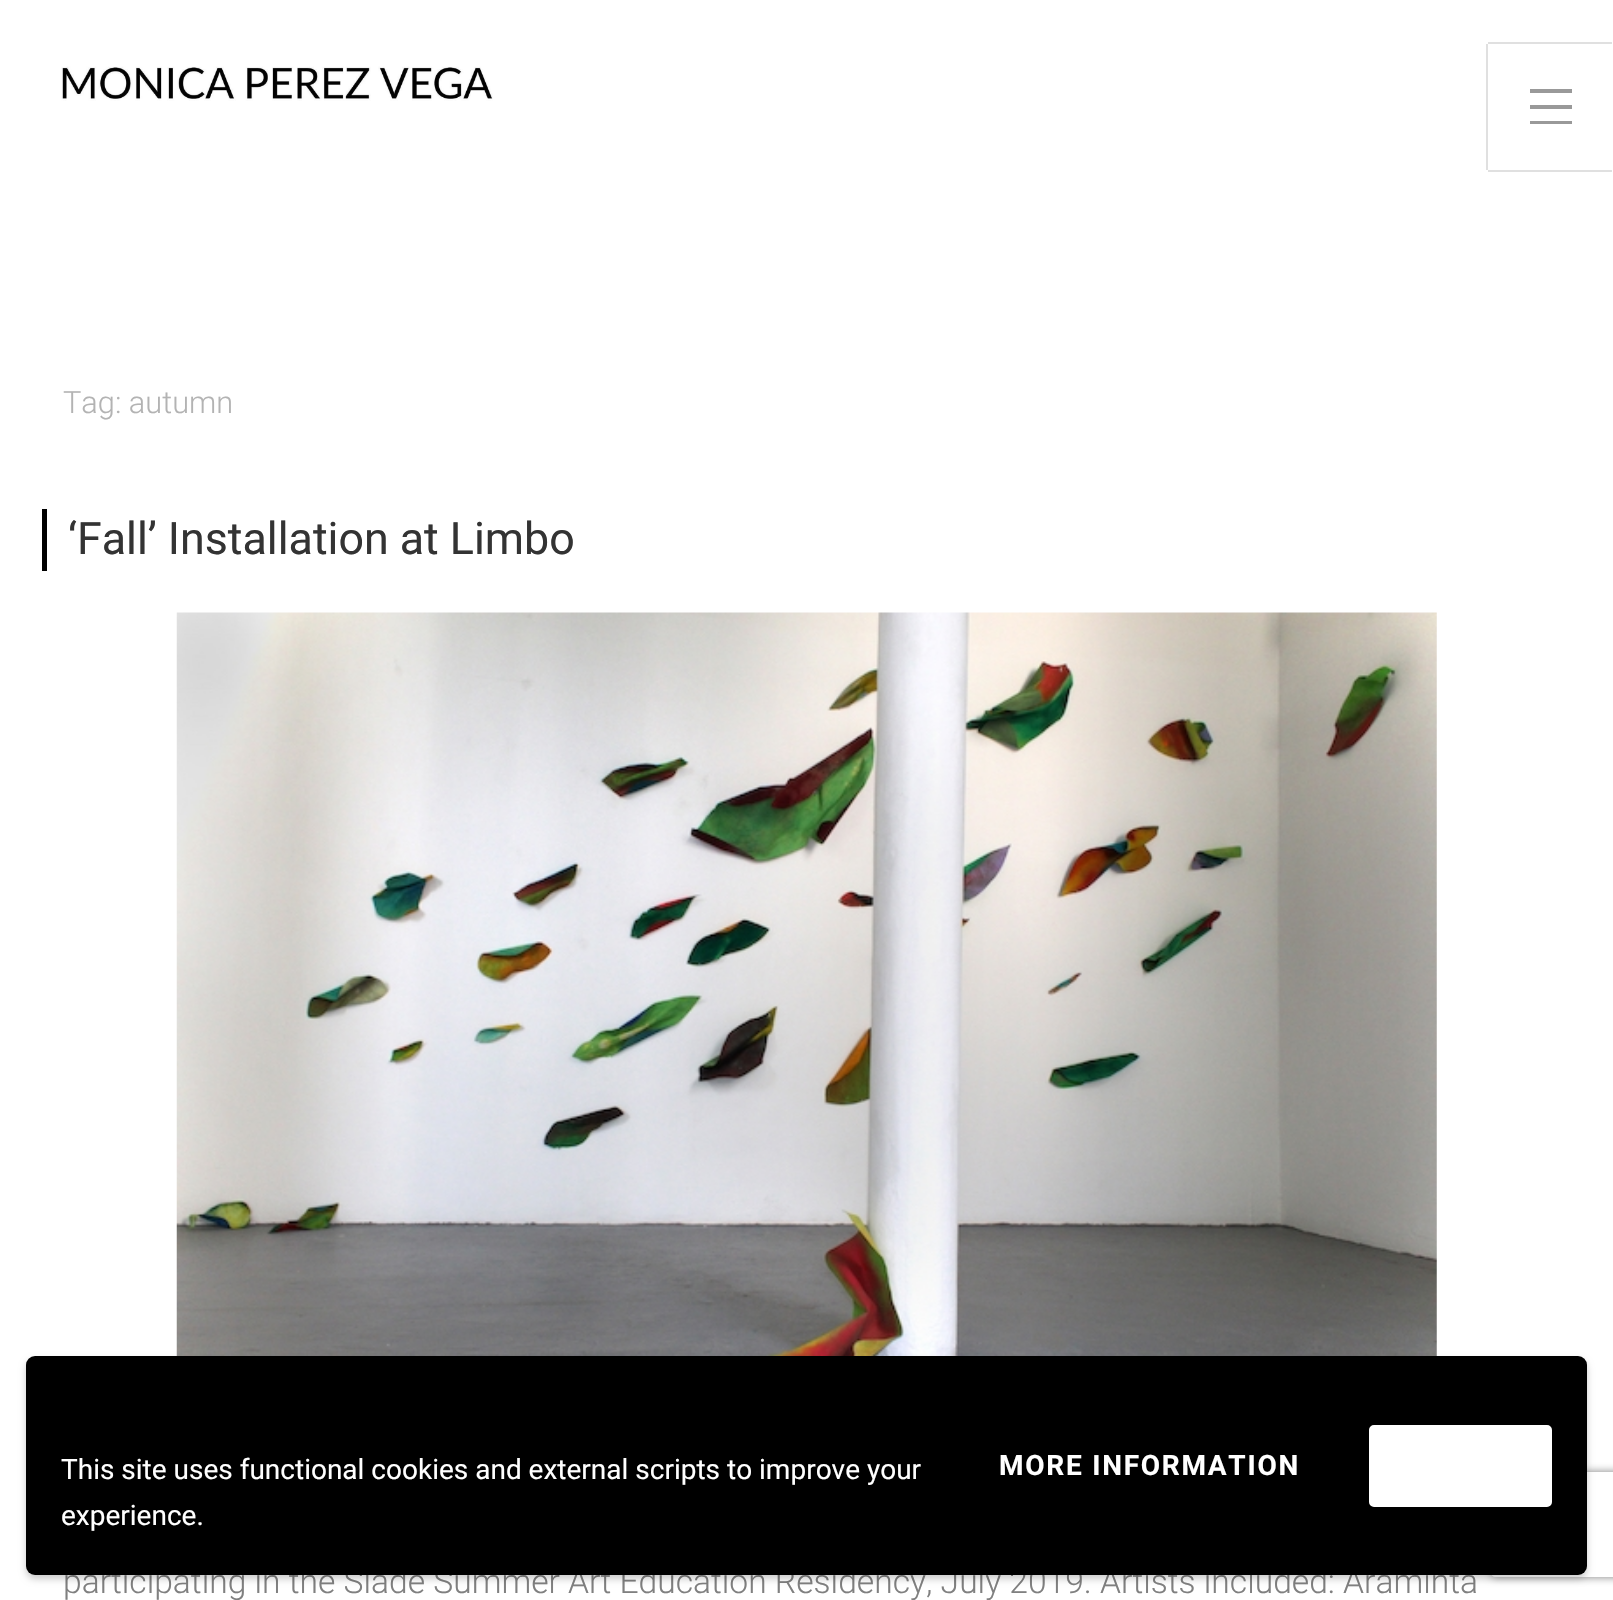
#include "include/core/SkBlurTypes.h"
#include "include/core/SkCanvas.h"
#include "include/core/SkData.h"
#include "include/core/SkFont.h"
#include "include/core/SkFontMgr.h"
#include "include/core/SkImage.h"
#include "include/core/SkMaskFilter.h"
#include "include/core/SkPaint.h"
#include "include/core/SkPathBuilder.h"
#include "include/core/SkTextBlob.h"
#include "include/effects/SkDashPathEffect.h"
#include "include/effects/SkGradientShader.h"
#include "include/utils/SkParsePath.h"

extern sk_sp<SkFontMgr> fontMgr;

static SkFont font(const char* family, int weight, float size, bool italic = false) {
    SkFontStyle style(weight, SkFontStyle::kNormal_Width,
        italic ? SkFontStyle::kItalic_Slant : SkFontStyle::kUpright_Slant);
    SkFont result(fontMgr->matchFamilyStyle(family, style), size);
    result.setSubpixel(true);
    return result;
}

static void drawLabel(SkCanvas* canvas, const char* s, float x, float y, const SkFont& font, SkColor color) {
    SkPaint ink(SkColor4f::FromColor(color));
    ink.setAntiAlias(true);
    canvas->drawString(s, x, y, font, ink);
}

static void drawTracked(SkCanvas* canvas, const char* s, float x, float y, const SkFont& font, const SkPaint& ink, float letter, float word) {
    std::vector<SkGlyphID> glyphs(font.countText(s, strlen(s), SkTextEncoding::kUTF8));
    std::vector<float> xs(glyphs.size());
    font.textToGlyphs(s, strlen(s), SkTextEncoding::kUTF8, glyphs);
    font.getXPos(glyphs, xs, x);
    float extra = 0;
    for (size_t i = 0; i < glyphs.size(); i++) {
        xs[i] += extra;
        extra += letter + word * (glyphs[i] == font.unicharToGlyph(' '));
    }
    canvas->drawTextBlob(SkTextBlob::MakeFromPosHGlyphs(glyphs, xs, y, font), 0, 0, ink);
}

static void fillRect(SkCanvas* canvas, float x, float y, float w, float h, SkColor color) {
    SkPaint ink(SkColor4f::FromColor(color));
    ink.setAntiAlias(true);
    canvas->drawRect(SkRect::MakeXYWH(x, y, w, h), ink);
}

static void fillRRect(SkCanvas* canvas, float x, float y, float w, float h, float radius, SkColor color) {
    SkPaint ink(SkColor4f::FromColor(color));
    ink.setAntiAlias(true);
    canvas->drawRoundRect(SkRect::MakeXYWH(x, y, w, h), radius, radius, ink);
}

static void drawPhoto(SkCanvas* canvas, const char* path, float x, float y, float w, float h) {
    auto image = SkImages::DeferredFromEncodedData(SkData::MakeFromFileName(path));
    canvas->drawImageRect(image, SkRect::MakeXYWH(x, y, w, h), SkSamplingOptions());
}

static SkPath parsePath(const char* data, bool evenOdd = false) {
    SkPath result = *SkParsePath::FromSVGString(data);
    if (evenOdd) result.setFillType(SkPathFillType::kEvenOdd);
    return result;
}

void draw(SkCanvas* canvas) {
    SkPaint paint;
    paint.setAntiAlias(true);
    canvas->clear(0xFFFFFFFF);
    drawPhoto(canvas, "assets/img1.png", 61, 66, 432, 35);
    fillRect(canvas, 1488, 42, 124, 2, 0xFFE0E0E0);
    fillRect(canvas, 1488, 170, 124, 2, 0xFFE0E0E0);
    fillRect(canvas, 1486, 44, 2, 126, 0xFFE0E0E0);
    fillRect(canvas, 1530, 89, 42, 4, 0xFF999999);
    fillRect(canvas, 1530, 105, 42, 4, 0xFF999999);
    fillRect(canvas, 1530, 121, 42, 3, 0xFF999999);
    SkFont font1 = font("Roboto", 300, 30.75f);
    drawLabel(canvas, "Tag: autumn", 63, 413, font1, 0xFFB3B3B3);
    fillRect(canvas, 42, 509, 5, 62, 0xFF000000);
    SkFont font2 = font("Roboto", 400, 44.75f);
    drawLabel(canvas, "‘Fall’ Installation at Limbo", 68, 554, font2, 0xFF333333);
    drawPhoto(canvas, "assets/img2.png", 176, 612, 1261, 744);
    SkFont font3 = font("Roboto", 300, 33.6f);
    drawLabel(canvas, "participating in the Slade Summer Art Education Residency, July 2019. Artists included: Araminta", 63, 1593, font3, 0xFF808080);
    paint.setColor(0x33000000);
    paint.setMaskFilter(SkMaskFilter::MakeBlur(kNormal_SkBlurStyle, 3.5f));
    canvas->drawRoundRect(SkRect::MakeXYWH(26, 1360, 1561, 219), 9, 9, paint);
    paint.setMaskFilter(nullptr);
    canvas->save();
    canvas->clipPath(parsePath("M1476 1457H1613V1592H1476ZM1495 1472H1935C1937 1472 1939 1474 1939 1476V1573C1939 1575 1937 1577 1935 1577H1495C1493 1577 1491 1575 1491 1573V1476C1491 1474 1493 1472 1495 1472Z", true), true);
    paint.setColor(0xFF808080);
    paint.setMaskFilter(SkMaskFilter::MakeBlur(kNormal_SkBlurStyle, 4.5f));
    canvas->drawRoundRect(SkRect::MakeXYWH(1491, 1472, 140, 105), 4, 4, paint);
    paint.setMaskFilter(nullptr);
    canvas->restore();
    fillRRect(canvas, 26, 1356, 1561, 219, 9, 0xFF000000);
    SkFont font4 = font("Roboto", 400, 28);
    drawLabel(canvas, "This site uses functional cookies and external scripts to improve your", 61, 1479, font4, 0xFFFFFFFF);
    drawLabel(canvas, "experience.", 61, 1525, font4, 0xFFFFFFFF);
    SkFont font5 = font("Roboto", 700, 28);
    paint.setColor(0xFFFFFFFF);
    drawTracked(canvas, "MORE INFORMATION", 999, 1475, font5, paint, 1.75f, 0);
    canvas->drawRoundRect(SkRect::MakeXYWH(1370, 1426, 181, 80), 4, 4, paint);
    paint.setStroke(true);
    paint.setStrokeWidth(2);
    canvas->drawRoundRect(SkRect::MakeXYWH(1370, 1426, 181, 80), 4, 4, paint);
}
